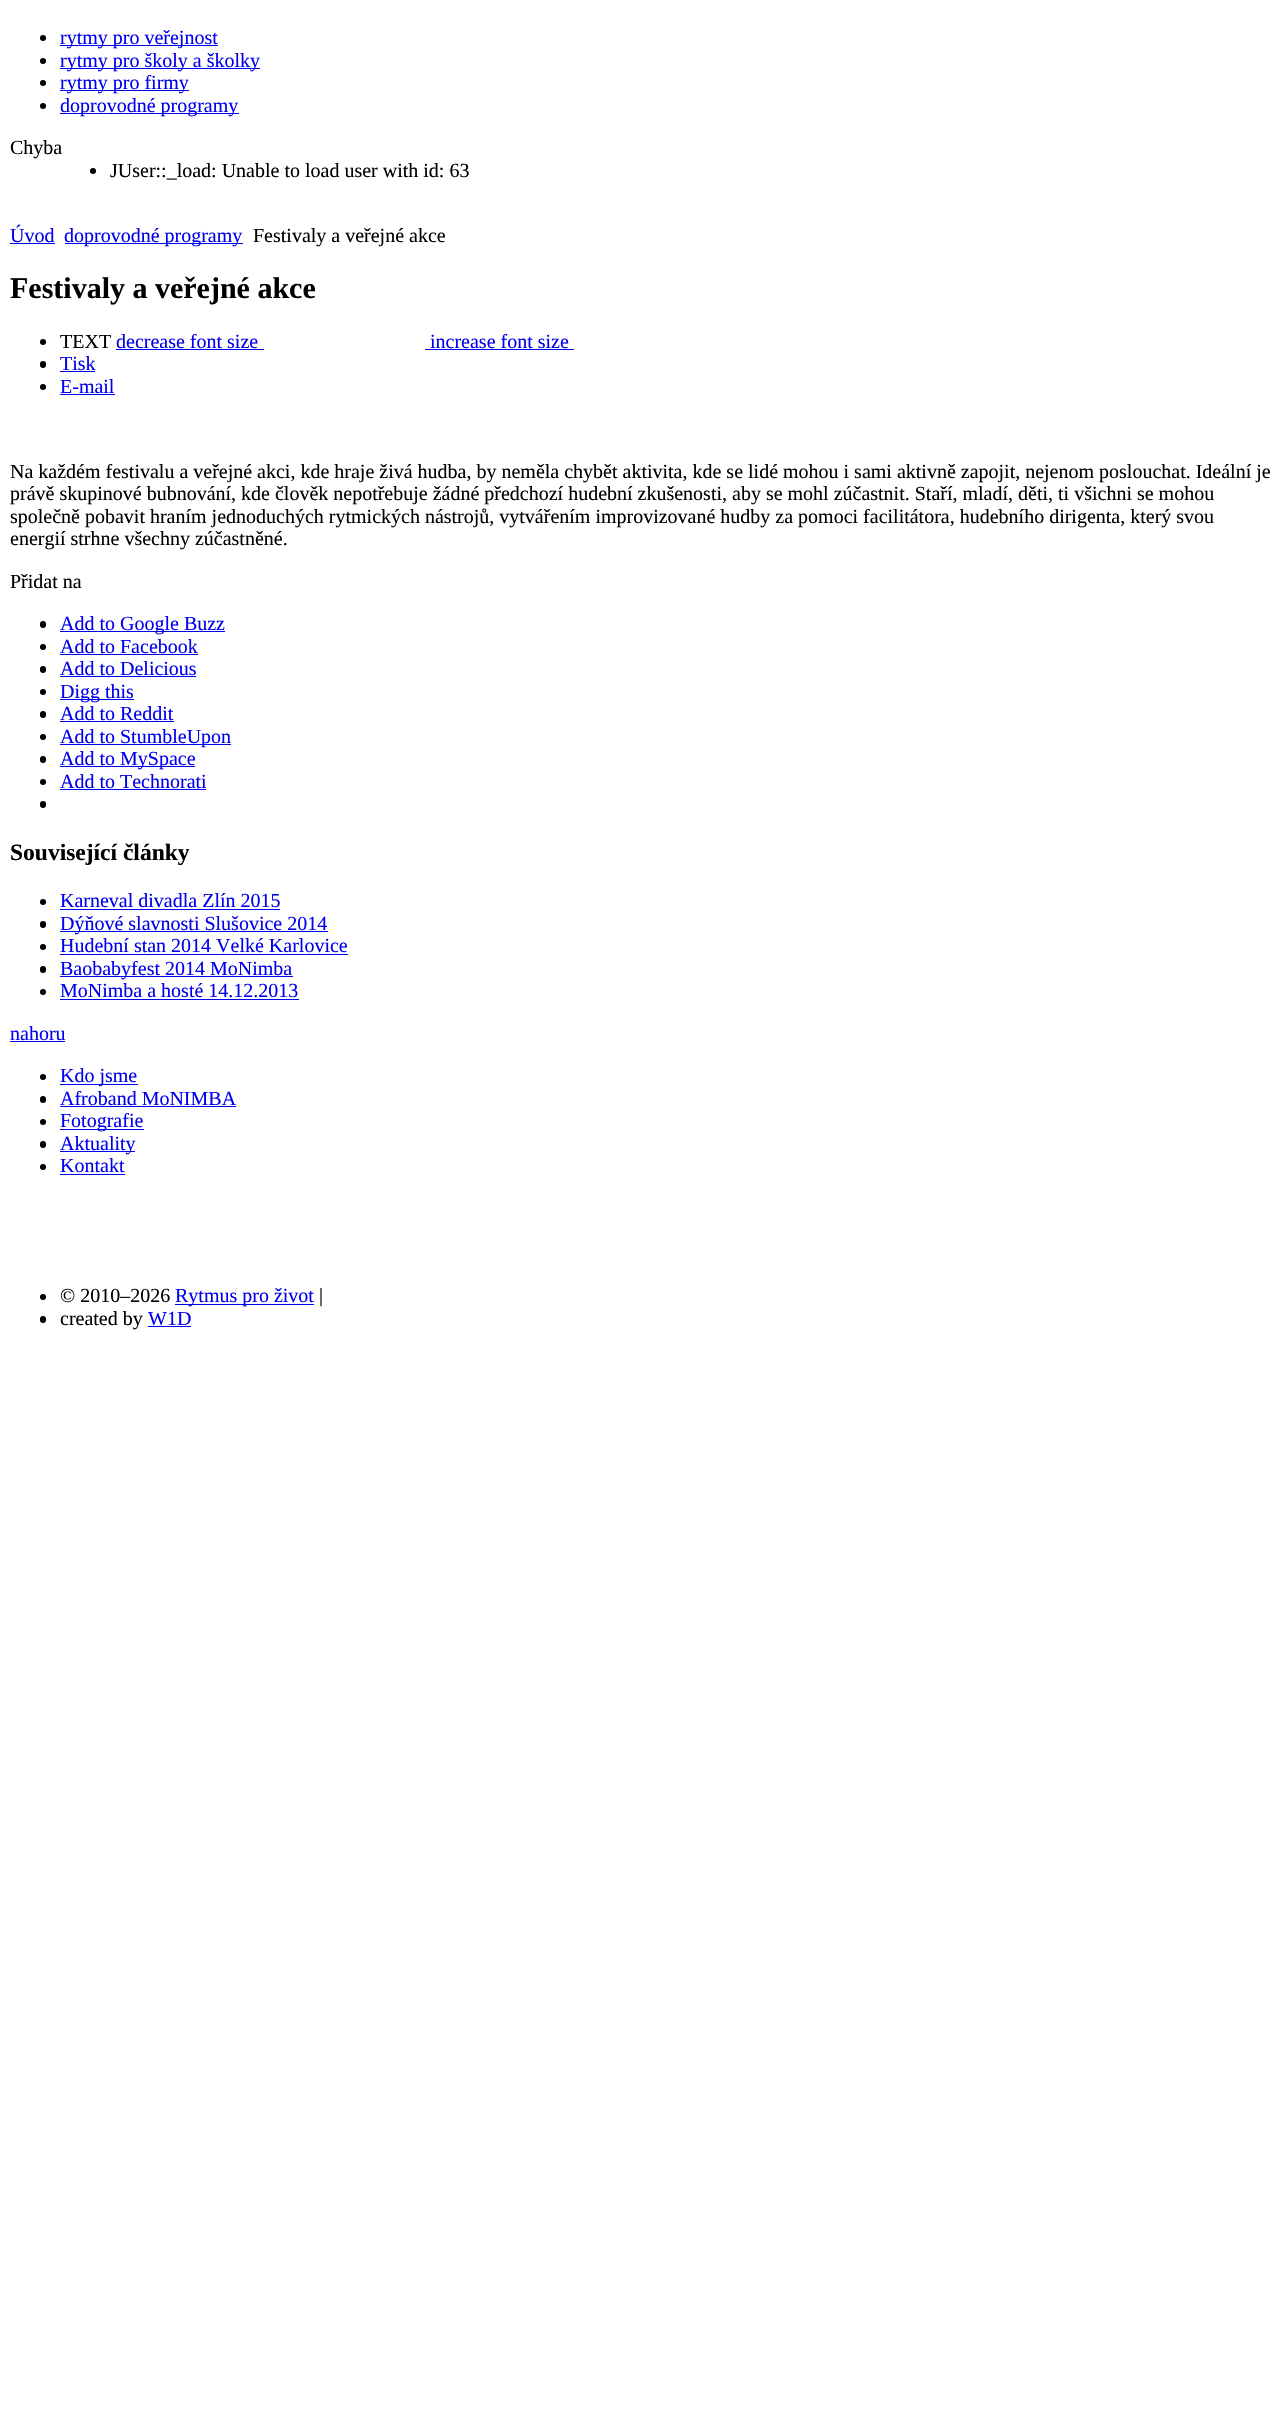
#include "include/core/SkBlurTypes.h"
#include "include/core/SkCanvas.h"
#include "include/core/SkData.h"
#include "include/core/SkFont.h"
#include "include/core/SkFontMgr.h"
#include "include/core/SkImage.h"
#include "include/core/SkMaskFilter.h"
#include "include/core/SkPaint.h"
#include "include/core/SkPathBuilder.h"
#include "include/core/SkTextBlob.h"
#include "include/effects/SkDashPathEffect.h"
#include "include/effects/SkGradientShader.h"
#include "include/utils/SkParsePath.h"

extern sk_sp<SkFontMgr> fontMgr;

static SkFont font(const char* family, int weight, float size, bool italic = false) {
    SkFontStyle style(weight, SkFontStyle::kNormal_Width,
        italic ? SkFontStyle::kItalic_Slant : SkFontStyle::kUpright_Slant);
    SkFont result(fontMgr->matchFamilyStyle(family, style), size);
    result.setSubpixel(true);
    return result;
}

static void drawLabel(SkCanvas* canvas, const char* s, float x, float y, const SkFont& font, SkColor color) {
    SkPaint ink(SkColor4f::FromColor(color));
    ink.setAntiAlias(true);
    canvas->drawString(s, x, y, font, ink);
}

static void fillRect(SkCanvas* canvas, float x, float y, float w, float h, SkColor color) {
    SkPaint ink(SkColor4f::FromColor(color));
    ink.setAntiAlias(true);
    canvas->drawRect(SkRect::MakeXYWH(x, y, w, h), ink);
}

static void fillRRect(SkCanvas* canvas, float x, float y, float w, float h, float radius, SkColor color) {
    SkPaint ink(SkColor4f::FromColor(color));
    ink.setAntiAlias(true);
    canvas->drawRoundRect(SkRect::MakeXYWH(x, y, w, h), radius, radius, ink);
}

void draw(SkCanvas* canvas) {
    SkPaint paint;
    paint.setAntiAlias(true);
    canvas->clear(0xFFFFFFFF);
    paint.setColor(0xFF000000);
    canvas->drawCircle(43, 38, 3, paint);
    fillRect(canvas, 60, 45, 158, 1, 0xFF0000EE);
    SkFont font1 = font("Liberation Serif", 400, 20);
    drawLabel(canvas, "rytmy pro veřejnost", 60, 44, font1, 0xFF0000EE);
    canvas->drawCircle(43, 61, 3, paint);
    fillRect(canvas, 60, 68, 200, 1, 0xFF0000EE);
    drawLabel(canvas, "rytmy pro školy a školky", 60, 67, font1, 0xFF0000EE);
    canvas->drawCircle(43, 83, 3, paint);
    fillRect(canvas, 60, 90, 129, 1, 0xFF0000EE);
    drawLabel(canvas, "rytmy pro firmy", 60, 89, font1, 0xFF0000EE);
    canvas->drawCircle(43, 106, 3, paint);
    fillRect(canvas, 60, 113, 179, 1, 0xFF0000EE);
    drawLabel(canvas, "doprovodné programy", 60, 112, font1, 0xFF0000EE);
    drawLabel(canvas, "Chyba", 10, 154, font1, 0xFF000000);
    canvas->drawCircle(93, 171, 3, paint);
    drawLabel(canvas, "JUser::_load: Unable to load user with id: 63", 110, 177, font1, 0xFF000000);
    drawLabel(canvas, "Úvod", 10, 242, font1, 0xFF0000EE);
    fillRect(canvas, 10, 243, 45, 1, 0xFF0000EE);
    fillRect(canvas, 65, 243, 178, 1, 0xFF0000EE);
    drawLabel(canvas, "doprovodné programy", 64, 242, font1, 0xFF0000EE);
    drawLabel(canvas, "Festivaly a veřejné akce", 253, 242, font1, 0xFF000000);
    SkFont font2 = font("Liberation Serif", 700, 30);
    drawLabel(canvas, "Festivaly a veřejné akce", 10, 298, font2, 0xFF000000);
    canvas->drawCircle(43, 342, 3, paint);
    drawLabel(canvas, "TEXT", 60, 348, font1, 0xFF000000);
    drawLabel(canvas, "decrease font size", 116, 348, font1, 0xFF0000EE);
    fillRect(canvas, 116, 349, 148, 1, 0xFF0000EE);
    fillRect(canvas, 425, 349, 149, 1, 0xFF0000EE);
    drawLabel(canvas, "increase font size", 430, 348, font1, 0xFF0000EE);
    fillRRect(canvas, 40, 361, 6, 7, 3, 0xFF000000);
    drawLabel(canvas, "Tisk", 60, 370, font1, 0xFF0000EE);
    fillRect(canvas, 60, 371, 35, 1, 0xFF0000EE);
    canvas->drawCircle(43, 387, 3, paint);
    drawLabel(canvas, "E-mail", 60, 393, font1, 0xFF0000EE);
    fillRect(canvas, 60, 394, 55, 1, 0xFF0000EE);
    drawLabel(canvas, "Na každém festivalu a veřejné akci, kde hraje živá hudba, by neměla chybět aktivita, kde se lidé mohou i sami aktivně zapojit, nejenom poslouchat. Ideální je", 10, 478, font1, 0xFF000000);
    drawLabel(canvas, "právě skupinové bubnování, kde člověk nepotřebuje žádné předchozí hudební zkušenosti, aby se mohl zúčastnit. Staří, mladí, děti, ti všichni se mohou", 10, 500, font1, 0xFF000000);
    drawLabel(canvas, "společně pobavit hraním jednoduchých rytmických nástrojů, vytvářením improvizované hudby za pomoci facilitátora, hudebního dirigenta, který svou", 10, 523, font1, 0xFF000000);
    drawLabel(canvas, "energií strhne všechny zúčastněné.", 10, 545, font1, 0xFF000000);
    drawLabel(canvas, "Přidat na", 10, 588, font1, 0xFF000000);
    fillRRect(canvas, 40, 621, 6, 7, 3, 0xFF000000);
    fillRect(canvas, 60, 631, 165, 1, 0xFF0000EE);
    drawLabel(canvas, "Add to Google Buzz", 60, 630, font1, 0xFF0000EE);
    canvas->drawCircle(43, 647, 3, paint);
    drawLabel(canvas, "Add to Facebook", 60, 653, font1, 0xFF0000EE);
    fillRect(canvas, 60, 654, 138, 1, 0xFF0000EE);
    fillRRect(canvas, 40, 666, 6, 7, 3, 0xFF000000);
    drawLabel(canvas, "Add to Delicious", 60, 675, font1, 0xFF0000EE);
    fillRect(canvas, 60, 676, 136, 1, 0xFF0000EE);
    canvas->drawCircle(43, 692, 3, paint);
    fillRect(canvas, 60, 699, 74, 1, 0xFF0000EE);
    drawLabel(canvas, "Digg this", 60, 698, font1, 0xFF0000EE);
    fillRRect(canvas, 40, 711, 6, 7, 3, 0xFF000000);
    drawLabel(canvas, "Add to Reddit", 60, 720, font1, 0xFF0000EE);
    fillRect(canvas, 60, 721, 114, 1, 0xFF0000EE);
    canvas->drawCircle(43, 737, 3, paint);
    fillRect(canvas, 60, 744, 171, 1, 0xFF0000EE);
    drawLabel(canvas, "Add to StumbleUpon", 60, 743, font1, 0xFF0000EE);
    fillRRect(canvas, 40, 756, 6, 7, 3, 0xFF000000);
    fillRect(canvas, 60, 766, 135, 1, 0xFF0000EE);
    drawLabel(canvas, "Add to MySpace", 60, 765, font1, 0xFF0000EE);
    canvas->drawCircle(43, 782, 3, paint);
    drawLabel(canvas, "Add to Technorati", 60, 788, font1, 0xFF0000EE);
    fillRect(canvas, 60, 789, 146, 1, 0xFF0000EE);
    fillRRect(canvas, 40, 801, 6, 7, 3, 0xFF000000);
    SkFont font3 = font("Liberation Serif", 700, 23.5f);
    drawLabel(canvas, "Související články", 10, 860, font3, 0xFF000000);
    canvas->drawCircle(43, 902, 3, paint);
    drawLabel(canvas, "Karneval divadla Zlín 2015", 60, 907, font1, 0xFF0000EE);
    fillRect(canvas, 60, 909, 220, 1, 0xFF0000EE);
    fillRRect(canvas, 40, 921, 6, 7, 3, 0xFF000000);
    fillRect(canvas, 60, 931, 268, 1, 0xFF0000EE);
    drawLabel(canvas, "Dýňové slavnosti Slušovice 2014", 60, 930, font1, 0xFF0000EE);
    canvas->drawCircle(43, 947, 3, paint);
    drawLabel(canvas, "Hudební stan 2014 Velké Karlovice", 60, 952, font1, 0xFF0000EE);
    fillRect(canvas, 60, 954, 288, 1, 0xFF0000EE);
    fillRRect(canvas, 40, 966, 6, 7, 3, 0xFF000000);
    fillRect(canvas, 60, 976, 233, 1, 0xFF0000EE);
    drawLabel(canvas, "Baobabyfest 2014 MoNimba", 60, 975, font1, 0xFF0000EE);
    canvas->drawCircle(43, 992, 3, paint);
    drawLabel(canvas, "MoNimba a hosté 14.12.2013", 60, 997, font1, 0xFF0000EE);
    fillRect(canvas, 60, 999, 239, 1, 0xFF0000EE);
    drawLabel(canvas, "nahoru", 10, 1040, font1, 0xFF0000EE);
    fillRect(canvas, 10, 1041, 55, 1, 0xFF0000EE);
    canvas->drawCircle(43, 1077, 3, paint);
    fillRect(canvas, 60, 1084, 78, 1, 0xFF0000EE);
    drawLabel(canvas, "Kdo jsme", 60, 1082, font1, 0xFF0000EE);
    fillRRect(canvas, 40, 1096, 6, 7, 3, 0xFF000000);
    drawLabel(canvas, "Afroband MoNIMBA", 60, 1105, font1, 0xFF0000EE);
    fillRect(canvas, 60, 1106, 176, 1, 0xFF0000EE);
    canvas->drawCircle(43, 1122, 3, paint);
    fillRect(canvas, 60, 1129, 84, 1, 0xFF0000EE);
    drawLabel(canvas, "Fotografie", 60, 1127, font1, 0xFF0000EE);
    fillRRect(canvas, 40, 1141, 6, 7, 3, 0xFF000000);
    fillRect(canvas, 60, 1151, 75, 1, 0xFF0000EE);
    drawLabel(canvas, "Aktuality", 60, 1150, font1, 0xFF0000EE);
    canvas->drawCircle(43, 1167, 3, paint);
    drawLabel(canvas, "Kontakt", 60, 1172, font1, 0xFF0000EE);
    fillRect(canvas, 60, 1174, 65, 1, 0xFF0000EE);
    canvas->drawCircle(43, 1297, 3, paint);
    drawLabel(canvas, "© 2010–2026", 60, 1302, font1, 0xFF000000);
    fillRect(canvas, 175, 1304, 139, 1, 0xFF0000EE);
    drawLabel(canvas, "Rytmus pro život", 175, 1302, font1, 0xFF0000EE);
    drawLabel(canvas, "|", 319, 1302, font1, 0xFF000000);
    fillRRect(canvas, 40, 1316, 6, 7, 3, 0xFF000000);
    drawLabel(canvas, "created by", 60, 1325, font1, 0xFF000000);
    drawLabel(canvas, "W1D", 148, 1325, font1, 0xFF0000EE);
    fillRect(canvas, 148, 1326, 43, 1, 0xFF0000EE);
}
